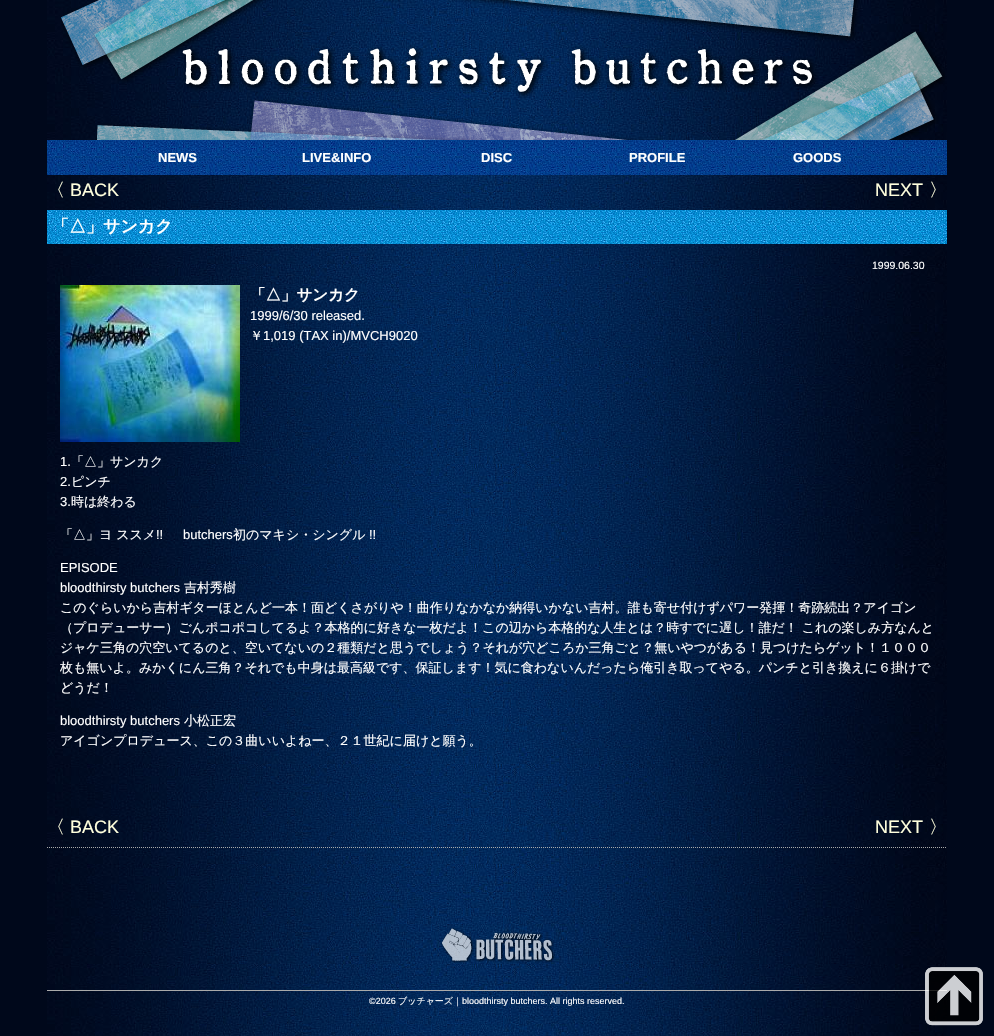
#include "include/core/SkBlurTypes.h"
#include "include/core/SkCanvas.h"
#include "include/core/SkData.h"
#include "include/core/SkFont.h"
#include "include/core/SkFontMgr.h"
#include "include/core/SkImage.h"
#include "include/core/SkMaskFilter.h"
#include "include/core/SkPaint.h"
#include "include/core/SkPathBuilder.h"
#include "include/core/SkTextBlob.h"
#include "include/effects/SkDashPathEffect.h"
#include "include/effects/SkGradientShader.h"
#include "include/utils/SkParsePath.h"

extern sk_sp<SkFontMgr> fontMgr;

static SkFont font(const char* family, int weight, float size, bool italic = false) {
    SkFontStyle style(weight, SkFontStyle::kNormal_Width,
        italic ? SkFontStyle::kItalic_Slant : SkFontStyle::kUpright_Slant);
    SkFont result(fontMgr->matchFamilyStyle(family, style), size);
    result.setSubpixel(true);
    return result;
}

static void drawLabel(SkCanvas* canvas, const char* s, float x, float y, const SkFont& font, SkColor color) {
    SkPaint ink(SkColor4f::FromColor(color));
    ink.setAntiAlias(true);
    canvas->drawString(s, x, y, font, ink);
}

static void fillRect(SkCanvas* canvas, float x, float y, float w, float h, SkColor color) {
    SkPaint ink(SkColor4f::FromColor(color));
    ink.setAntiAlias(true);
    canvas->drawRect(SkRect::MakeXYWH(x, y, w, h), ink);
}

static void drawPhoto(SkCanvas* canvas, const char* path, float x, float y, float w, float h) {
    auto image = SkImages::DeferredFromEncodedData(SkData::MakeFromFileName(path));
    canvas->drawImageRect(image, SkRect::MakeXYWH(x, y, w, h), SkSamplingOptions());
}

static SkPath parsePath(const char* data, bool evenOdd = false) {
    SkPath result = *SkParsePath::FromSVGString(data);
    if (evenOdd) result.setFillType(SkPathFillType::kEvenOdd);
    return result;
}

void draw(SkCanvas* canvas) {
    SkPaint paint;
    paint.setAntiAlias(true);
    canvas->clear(0xFF00081B);
    drawPhoto(canvas, "assets/img1.png", 47, 0, 900, 1036);
    drawPhoto(canvas, "assets/img2.png", 61, 0, 884, 140);
    drawPhoto(canvas, "assets/img3.png", 47, 140, 900, 35);
    SkFont font1 = font("Liberation Sans", 700, 13);
    drawLabel(canvas, "NEWS", 158, 162, font1, 0xFFFFFFFF);
    drawLabel(canvas, "LIVE&INFO", 302, 162, font1, 0xFFFFFFFF);
    drawLabel(canvas, "DISC", 481, 162, font1, 0xFFFFFFFF);
    drawLabel(canvas, "PROFILE", 629, 162, font1, 0xFFFFFFFF);
    drawLabel(canvas, "GOODS", 793, 162, font1, 0xFFFFFFFF);
    SkFont font2 = font("WenQuanYi Zen Hei", 500, 18);
    drawLabel(canvas, "〈", 47, 196, font2, 0xFFFFFFDD);
    SkFont font3 = font("Liberation Sans", 400, 18);
    drawLabel(canvas, "BACK", 70, 196, font3, 0xFFFFFFDD);
    drawLabel(canvas, "NEXT", 875, 196, font3, 0xFFFFFFDD);
    drawLabel(canvas, "〉", 929, 196, font2, 0xFFFFFFDD);
    drawPhoto(canvas, "assets/img4.png", 47, 210, 900, 34);
    SkFont font4 = font("WenQuanYi Zen Hei", 700, 17);
    drawLabel(canvas, "「△」サンカク", 52, 232, font4, 0xFFFFFFFF);
    SkFont font5 = font("Liberation Sans", 400, 10.5f);
    drawLabel(canvas, "1999.06.30", 872, 269, font5, 0xFFFFFFFF);
    drawPhoto(canvas, "assets/img5.png", 60, 285, 180, 157);
    SkFont font6 = font("WenQuanYi Zen Hei", 700, 15.5f);
    drawLabel(canvas, "「△」サンカク", 250, 300, font6, 0xFFFFFFFF);
    SkFont font7 = font("Liberation Sans", 400, 13);
    drawLabel(canvas, "1999/6/30 released.", 250, 320, font7, 0xFFFFFFFF);
    SkFont font8 = font("WenQuanYi Zen Hei", 500, 13);
    drawLabel(canvas, "￥", 250, 340, font8, 0xFFFFFFFF);
    drawLabel(canvas, "1,019 (TAX in)/MVCH9020", 263, 340, font7, 0xFFFFFFFF);
    drawLabel(canvas, "1.", 60, 466, font7, 0xFFFFFFFF);
    drawLabel(canvas, "「△」サンカク", 71, 466, font8, 0xFFFFFFFF);
    drawLabel(canvas, "2.", 60, 486, font7, 0xFFFFFFFF);
    drawLabel(canvas, "ピンチ", 71, 486, font8, 0xFFFFFFFF);
    drawLabel(canvas, "3.", 60, 506, font7, 0xFFFFFFFF);
    drawLabel(canvas, "時は終わる", 71, 506, font8, 0xFFFFFFFF);
    drawLabel(canvas, "「△」ヨ ススメ", 60, 539, font8, 0xFFFFFFFF);
    drawLabel(canvas, "!!", 156, 539, font7, 0xFFFFFFFF);
    drawLabel(canvas, "butchers", 183, 539, font7, 0xFFFFFFFF);
    drawLabel(canvas, "初のマキシ・シングル", 233, 539, font8, 0xFFFFFFFF);
    drawLabel(canvas, "!!", 369, 539, font7, 0xFFFFFFFF);
    drawLabel(canvas, "EPISODE", 60, 572, font7, 0xFFFFFFFF);
    drawLabel(canvas, "bloodthirsty butchers", 60, 592, font7, 0xFFFFFFFF);
    drawLabel(canvas, "吉村秀樹", 184, 592, font8, 0xFFFFFFFF);
    drawLabel(canvas, "このぐらいから吉村ギターほとんど一本！面どくさがりや！曲作りなかなか納得いかない吉村。誰も寄せ付けずパワー発揮！奇跡続出？アイゴン", 60, 612, font8, 0xFFFFFFFF);
    drawLabel(canvas, "（プロデューサー）ごんポコポコしてるよ？本格的に好きな一枚だよ！この辺から本格的な人生とは？時すでに遅し！誰だ！ これの楽しみ方なんと", 60, 632, font8, 0xFFFFFFFF);
    drawLabel(canvas, "ジャケ三角の穴空いてるのと、空いてないの２種類だと思うでしょう？それが穴どころか三角ごと？無いやつがある！見つけたらゲット！１０００", 60, 652, font8, 0xFFFFFFFF);
    drawLabel(canvas, "枚も無いよ。みかくにん三角？それでも中身は最高級です、保証します！気に食わないんだったら俺引き取ってやる。パンチと引き換えに６掛けで", 60, 672, font8, 0xFFFFFFFF);
    drawLabel(canvas, "どうだ！", 60, 692, font8, 0xFFFFFFFF);
    drawLabel(canvas, "bloodthirsty butchers", 60, 725, font7, 0xFFFFFFFF);
    drawLabel(canvas, "小松正宏", 184, 725, font8, 0xFFFFFFFF);
    drawLabel(canvas, "アイゴンプロデュース、この３曲いいよねー、２１世紀に届けと願う。", 60, 745, font8, 0xFFFFFFFF);
    drawLabel(canvas, "〈", 47, 833, font2, 0xFFFFFFDD);
    drawLabel(canvas, "BACK", 70, 833, font3, 0xFFFFFFDD);
    drawLabel(canvas, "NEXT", 875, 833, font3, 0xFFFFFFDD);
    drawLabel(canvas, "〉", 929, 833, font2, 0xFFFFFFDD);
    paint.setStroke(true);
    paint.setStrokeWidth(1);
    paint.setColor(0xFFAAAAAA);
    paint.setPathEffect(SkDashPathEffect::Make({{1, 1}}, 0));
    canvas->drawPath(parsePath("M47 847.5H947"), paint);
    paint.setPathEffect(nullptr);
    drawPhoto(canvas, "assets/img6.png", 441, 927, 114, 36);
    fillRect(canvas, 47, 990, 900, 1, 0xFFAAAAAA);
    SkFont font9 = font("Liberation Sans", 400, 9);
    drawLabel(canvas, "©2026", 369, 1004, font9, 0xFFFFFFFF);
    SkFont font10 = font("WenQuanYi Zen Hei", 500, 9);
    drawLabel(canvas, "ブッチャーズ｜", 398, 1004, font10, 0xFFFFFFFF);
    drawLabel(canvas, "bloodthirsty butchers. All rights reserved.", 462, 1004, font9, 0xFFFFFFFF);
    drawPhoto(canvas, "assets/img7.png", 925, 967, 58, 59);
}
